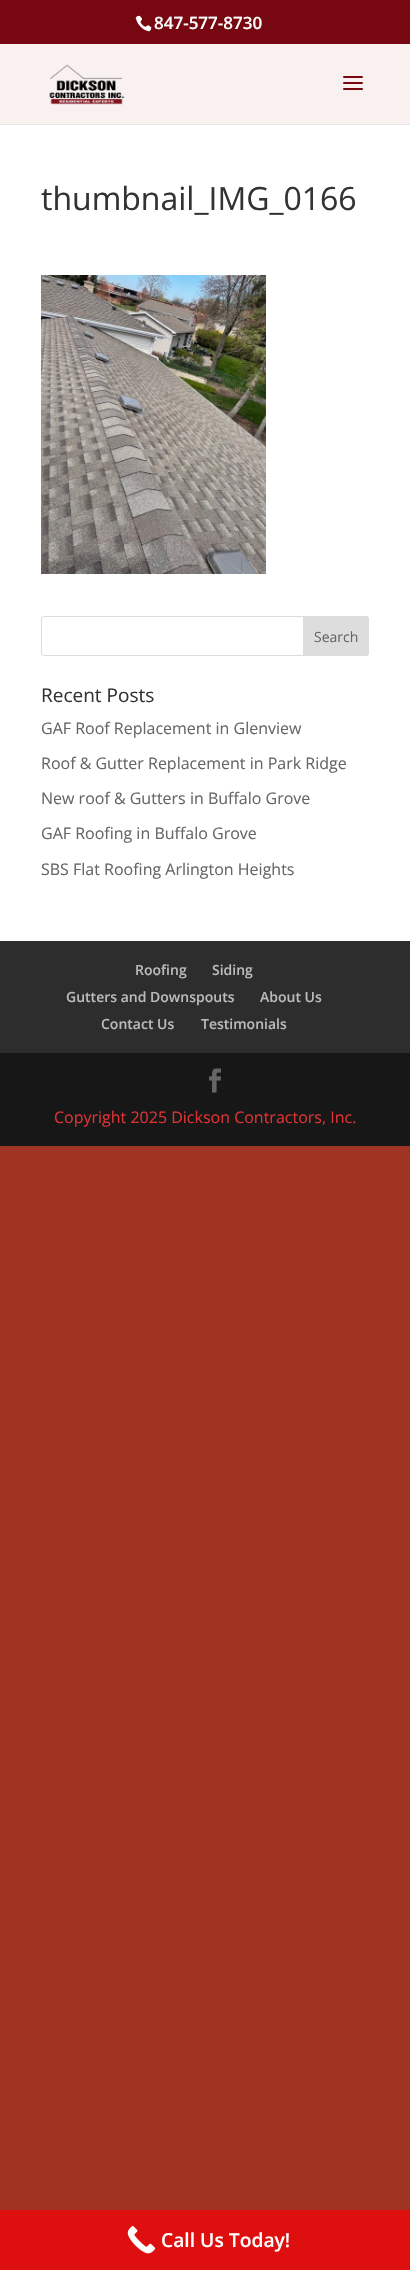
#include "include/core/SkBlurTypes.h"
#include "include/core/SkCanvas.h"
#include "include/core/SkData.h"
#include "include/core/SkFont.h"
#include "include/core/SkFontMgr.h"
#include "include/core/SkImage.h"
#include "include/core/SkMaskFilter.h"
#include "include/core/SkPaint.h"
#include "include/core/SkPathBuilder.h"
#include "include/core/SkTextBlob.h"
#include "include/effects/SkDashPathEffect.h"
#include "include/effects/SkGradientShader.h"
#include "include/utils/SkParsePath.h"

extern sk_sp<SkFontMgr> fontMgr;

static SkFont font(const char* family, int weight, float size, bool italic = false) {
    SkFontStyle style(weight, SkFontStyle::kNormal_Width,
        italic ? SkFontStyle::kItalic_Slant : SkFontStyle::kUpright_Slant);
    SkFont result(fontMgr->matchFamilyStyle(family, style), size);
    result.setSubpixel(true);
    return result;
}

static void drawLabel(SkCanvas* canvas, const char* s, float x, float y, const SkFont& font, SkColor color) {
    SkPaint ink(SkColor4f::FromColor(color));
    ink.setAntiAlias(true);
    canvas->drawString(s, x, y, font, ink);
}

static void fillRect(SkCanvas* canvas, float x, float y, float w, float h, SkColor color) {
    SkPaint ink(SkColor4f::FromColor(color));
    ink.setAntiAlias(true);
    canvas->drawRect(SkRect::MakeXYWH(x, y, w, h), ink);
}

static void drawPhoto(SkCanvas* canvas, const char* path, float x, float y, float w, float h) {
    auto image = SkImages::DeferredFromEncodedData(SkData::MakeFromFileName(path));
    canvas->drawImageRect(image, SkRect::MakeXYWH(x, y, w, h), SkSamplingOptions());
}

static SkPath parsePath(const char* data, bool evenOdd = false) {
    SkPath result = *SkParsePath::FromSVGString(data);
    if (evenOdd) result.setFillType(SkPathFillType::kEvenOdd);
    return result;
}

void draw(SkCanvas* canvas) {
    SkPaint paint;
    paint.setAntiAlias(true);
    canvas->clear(0xFFA03423);
    fillRect(canvas, 0, 0, 410, 44, 0xFF770710);
    drawPhoto(canvas, "assets/img1.png", 135, 15, 17, 17);
    SkFont font1 = font("Open Sans", 600, 17);
    drawLabel(canvas, "847-577-8730", 154, 29, font1, 0xFFFFFFFF);
    fillRect(canvas, 0, 124, 410, 1, 0xFFE6E6E6);
    fillRect(canvas, 0, 44, 410, 80, 0xFFF8F1F0);
    drawPhoto(canvas, "assets/img2.png", 49, 64, 76, 41);
    drawPhoto(canvas, "assets/img3.png", 343, 76, 20, 14);
    fillRect(canvas, 0, 125, 410, 816, 0xFFFFFFFF);
    SkFont font2 = font("Open Sans", 400, 32);
    drawLabel(canvas, "thumbnail_IMG_0166", 41, 210, font2, 0xFF333333);
    drawPhoto(canvas, "assets/img4.png", 41, 275, 225, 299);
    paint.setStroke(true);
    paint.setStrokeWidth(1);
    paint.setColor(0xFFDDDDDD);
    canvas->drawRoundRect(SkRect::MakeXYWH(41.5f, 616.5f, 327, 39), 2.5f, 2.5f, paint);
    paint.setStroke(false);
    canvas->drawPath(parsePath("M303.5 616.5H366C367.5 616.5 368.5 617.5 368.5 619V653C368.5 654.5 367.5 655.5 366 655.5H303.5Z"), paint);
    paint.setStroke(true);
    canvas->drawPath(parsePath("M303.5 616.5H366C367.5 616.5 368.5 617.5 368.5 619V653C368.5 654.5 367.5 655.5 366 655.5H303.5Z"), paint);
    SkFont font3 = font("Open Sans", 400, 14);
    drawLabel(canvas, "Search", 314, 642, font3, 0xFF666666);
    SkFont font4 = font("Open Sans", 400, 19);
    drawLabel(canvas, "Recent Posts", 41, 702, font4, 0xFF333333);
    SkFont font5 = font("Open Sans", 400, 16);
    drawLabel(canvas, "GAF Roof Replacement in Glenview", 41, 734, font5, 0xFF666666);
    drawLabel(canvas, "Roof & Gutter Replacement in Park Ridge", 41, 769, font5, 0xFF666666);
    drawLabel(canvas, "New roof & Gutters in Buffalo Grove", 41, 804, font5, 0xFF666666);
    drawLabel(canvas, "GAF Roofing in Buffalo Grove", 41, 839, font5, 0xFF666666);
    drawLabel(canvas, "SBS Flat Roofing Arlington Heights", 41, 875, font5, 0xFF666666);
    fillRect(canvas, 0, 941, 410, 112, 0xFF2D2D2D);
    SkFont font6 = font("Open Sans", 600, 14);
    drawLabel(canvas, "Roofing", 135, 975, font6, 0xFFBBBBBB);
    drawLabel(canvas, "Siding", 212, 975, font6, 0xFFBBBBBB);
    drawLabel(canvas, "Gutters and Downspouts", 66, 1002, font6, 0xFFBBBBBB);
    drawLabel(canvas, "About Us", 260, 1002, font6, 0xFFBBBBBB);
    drawLabel(canvas, "Contact Us", 101, 1029, font6, 0xFFBBBBBB);
    drawLabel(canvas, "Testimonials", 201, 1029, font6, 0xFFBBBBBB);
    fillRect(canvas, 0, 1053, 410, 93, 0xFF171717);
    drawPhoto(canvas, "assets/img5.png", 209, 1068, 12, 25);
    drawLabel(canvas, "Copyright 2025 Dickson Contractors, Inc.", 54, 1123, font5, 0xFFDD3333);
    fillRect(canvas, 0, 2210, 410, 60, 0xFFDD0F0F);
    drawPhoto(canvas, "assets/img6.png", 127, 2226, 29, 28);
    SkFont font7 = font("Open Sans", 600, 19.25f);
    drawLabel(canvas, "Call Us Today!", 161, 2247, font7, 0xFFFFFFFF);
}
